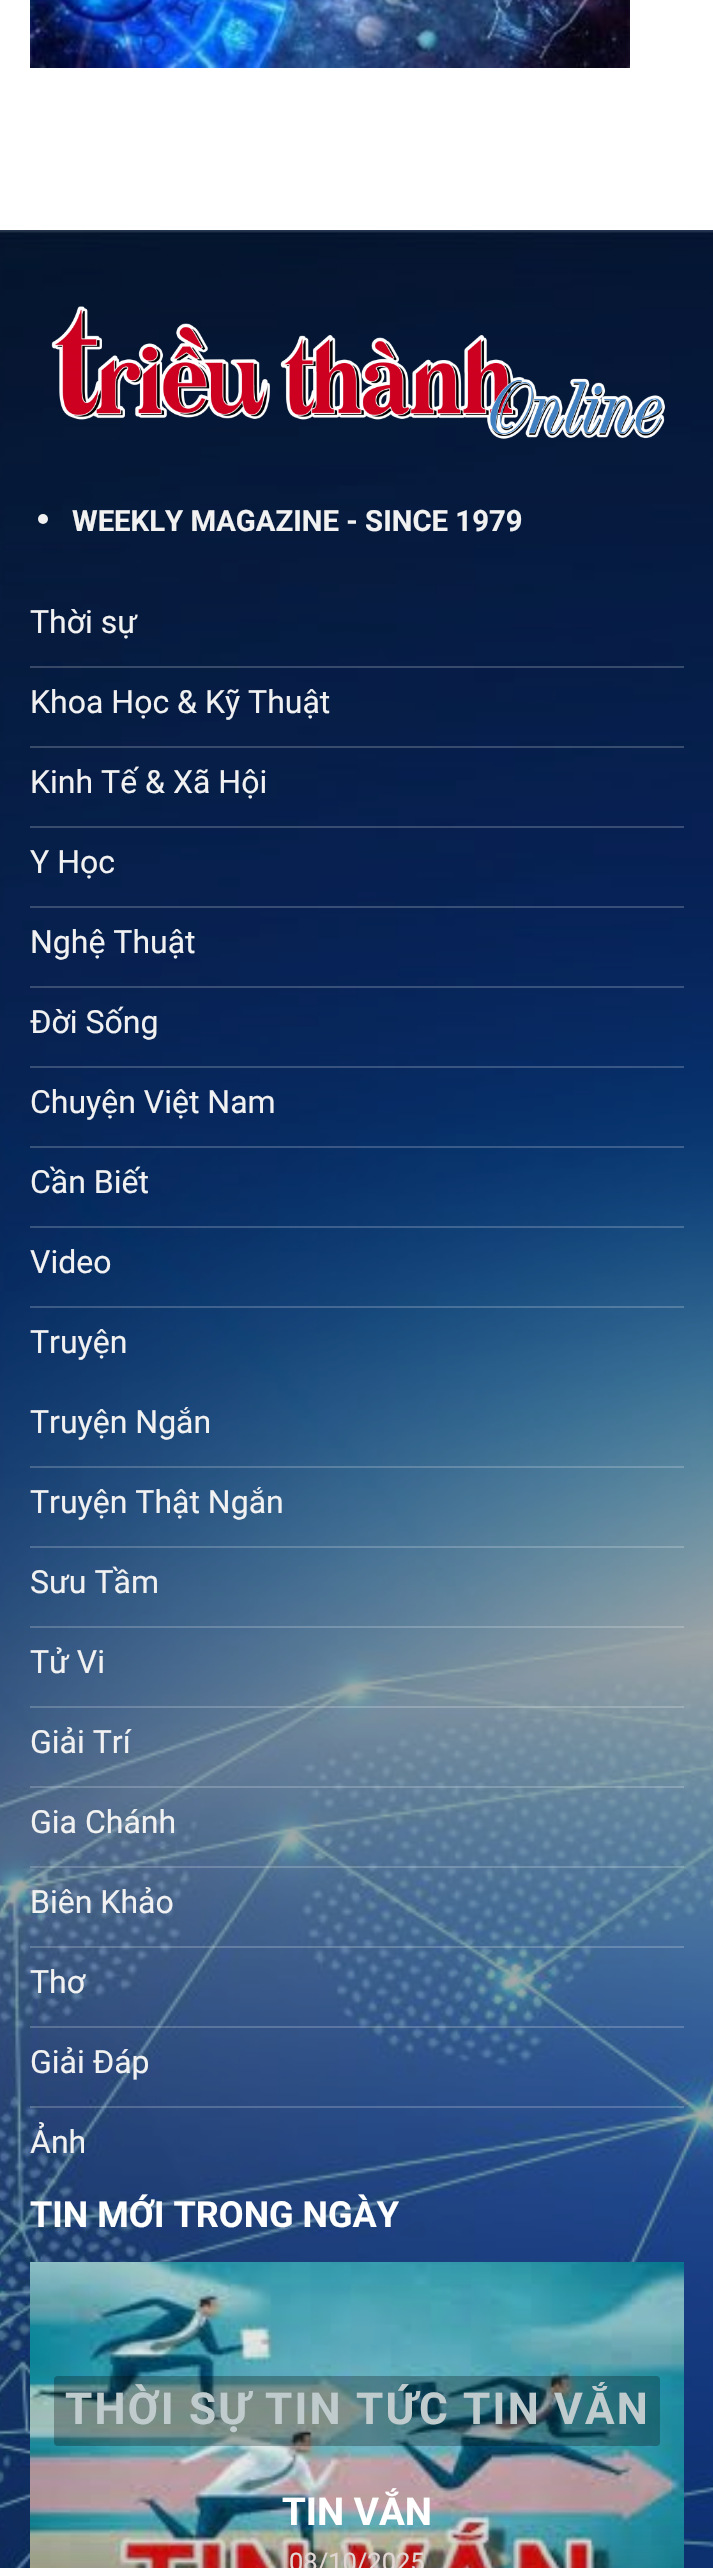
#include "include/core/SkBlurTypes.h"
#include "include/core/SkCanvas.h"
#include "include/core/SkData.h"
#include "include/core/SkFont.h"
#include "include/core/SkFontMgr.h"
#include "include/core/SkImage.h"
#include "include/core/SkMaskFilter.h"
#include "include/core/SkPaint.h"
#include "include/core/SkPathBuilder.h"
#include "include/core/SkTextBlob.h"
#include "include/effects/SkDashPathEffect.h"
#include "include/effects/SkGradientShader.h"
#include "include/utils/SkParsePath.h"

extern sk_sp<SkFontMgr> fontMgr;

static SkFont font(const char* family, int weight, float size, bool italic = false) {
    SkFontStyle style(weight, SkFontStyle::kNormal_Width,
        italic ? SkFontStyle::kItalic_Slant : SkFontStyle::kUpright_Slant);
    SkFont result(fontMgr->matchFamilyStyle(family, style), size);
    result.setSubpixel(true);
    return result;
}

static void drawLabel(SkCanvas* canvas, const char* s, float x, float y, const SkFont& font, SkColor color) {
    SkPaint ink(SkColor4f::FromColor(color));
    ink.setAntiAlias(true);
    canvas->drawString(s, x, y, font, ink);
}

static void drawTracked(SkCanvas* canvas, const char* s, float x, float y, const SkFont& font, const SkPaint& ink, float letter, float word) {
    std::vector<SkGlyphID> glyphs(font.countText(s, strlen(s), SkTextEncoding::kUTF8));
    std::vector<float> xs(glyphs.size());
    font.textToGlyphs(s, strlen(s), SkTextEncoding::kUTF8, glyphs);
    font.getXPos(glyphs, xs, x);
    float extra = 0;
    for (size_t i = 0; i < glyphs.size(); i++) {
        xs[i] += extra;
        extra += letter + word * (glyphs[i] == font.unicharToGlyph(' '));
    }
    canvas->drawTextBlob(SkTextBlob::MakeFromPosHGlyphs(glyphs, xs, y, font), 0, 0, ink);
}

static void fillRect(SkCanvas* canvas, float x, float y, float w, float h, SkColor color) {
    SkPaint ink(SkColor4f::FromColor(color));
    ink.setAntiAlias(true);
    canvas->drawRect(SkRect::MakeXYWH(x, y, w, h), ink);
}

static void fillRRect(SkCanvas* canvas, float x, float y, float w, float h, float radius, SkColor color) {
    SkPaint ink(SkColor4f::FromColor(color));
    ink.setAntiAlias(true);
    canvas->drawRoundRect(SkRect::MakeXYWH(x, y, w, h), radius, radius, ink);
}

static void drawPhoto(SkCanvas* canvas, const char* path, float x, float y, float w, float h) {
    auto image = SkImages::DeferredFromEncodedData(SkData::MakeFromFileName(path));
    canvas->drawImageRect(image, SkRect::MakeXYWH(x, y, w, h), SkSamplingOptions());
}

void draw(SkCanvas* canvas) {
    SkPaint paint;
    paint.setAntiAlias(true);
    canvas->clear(0xFFFFFFFF);
    drawPhoto(canvas, "assets/img1.png", 30, 0, 600, 68);
    drawPhoto(canvas, "assets/img2.png", 0, 230, 713, 2338);
    drawPhoto(canvas, "assets/img3.png", 51, 306, 614, 133);
    paint.setColor(0xFFF1F1F1);
    canvas->drawCircle(43, 519, 5, paint);
    SkFont font1 = font("Roboto", 700, 29.3f);
    drawLabel(canvas, "WEEKLY MAGAZINE - SINCE 1979", 72, 531, font1, 0xFFF1F1F1);
    fillRect(canvas, 30, 666, 654, 2, 0x33FFFFFF);
    SkFont font2 = font("Roboto", 400, 32);
    drawLabel(canvas, "Thời sự", 30, 633, font2, 0xFFF1F1F1);
    fillRect(canvas, 30, 746, 654, 2, 0x33FFFFFF);
    drawLabel(canvas, "Khoa Học & Kỹ Thuật", 30, 713, font2, 0xFFF1F1F1);
    fillRect(canvas, 30, 826, 654, 2, 0x33FFFFFF);
    drawLabel(canvas, "Kinh Tế & Xã Hội", 30, 793, font2, 0xFFF1F1F1);
    fillRect(canvas, 30, 906, 654, 2, 0x33FFFFFF);
    drawLabel(canvas, "Y Học", 30, 873, font2, 0xFFF1F1F1);
    fillRect(canvas, 30, 986, 654, 2, 0x33FFFFFF);
    drawLabel(canvas, "Nghệ Thuật", 30, 953, font2, 0xFFF1F1F1);
    fillRect(canvas, 30, 1066, 654, 2, 0x33FFFFFF);
    drawLabel(canvas, "Đời Sống", 30, 1033, font2, 0xFFF1F1F1);
    fillRect(canvas, 30, 1146, 654, 2, 0x33FFFFFF);
    drawLabel(canvas, "Chuyện Việt Nam", 30, 1113, font2, 0xFFF1F1F1);
    fillRect(canvas, 30, 1226, 654, 2, 0x33FFFFFF);
    drawLabel(canvas, "Cần Biết", 30, 1193, font2, 0xFFF1F1F1);
    fillRect(canvas, 30, 1306, 654, 2, 0x33FFFFFF);
    drawLabel(canvas, "Video", 30, 1273, font2, 0xFFF1F1F1);
    drawLabel(canvas, "Truyện", 30, 1353, font2, 0xFFF1F1F1);
    fillRect(canvas, 30, 1466, 654, 2, 0x33FFFFFF);
    drawLabel(canvas, "Truyện Ngắn", 30, 1433, font2, 0xFFF1F1F1);
    fillRect(canvas, 30, 1546, 654, 2, 0x33FFFFFF);
    drawLabel(canvas, "Truyện Thật Ngắn", 30, 1513, font2, 0xFFF1F1F1);
    fillRect(canvas, 30, 1626, 654, 2, 0x33FFFFFF);
    drawLabel(canvas, "Sưu Tầm", 30, 1593, font2, 0xFFF1F1F1);
    fillRect(canvas, 30, 1706, 654, 2, 0x33FFFFFF);
    drawLabel(canvas, "Tử Vi", 30, 1673, font2, 0xFFF1F1F1);
    fillRect(canvas, 30, 1786, 654, 2, 0x33FFFFFF);
    drawLabel(canvas, "Giải Trí", 30, 1753, font2, 0xFFF1F1F1);
    fillRect(canvas, 30, 1866, 654, 2, 0x33FFFFFF);
    drawLabel(canvas, "Gia Chánh", 30, 1833, font2, 0xFFF1F1F1);
    fillRect(canvas, 30, 1946, 654, 2, 0x33FFFFFF);
    drawLabel(canvas, "Biên Khảo", 30, 1913, font2, 0xFFF1F1F1);
    fillRect(canvas, 30, 2026, 654, 2, 0x33FFFFFF);
    drawLabel(canvas, "Thơ", 30, 1993, font2, 0xFFF1F1F1);
    fillRect(canvas, 30, 2106, 654, 2, 0x33FFFFFF);
    drawLabel(canvas, "Giải Đáp", 30, 2073, font2, 0xFFF1F1F1);
    drawLabel(canvas, "Ảnh", 30, 2153, font2, 0xFFF1F1F1);
    SkFont font3 = font("Roboto", 700, 36);
    drawLabel(canvas, "TIN MỚI TRONG NGÀY", 30, 2227, font3, 0xFFFFFFFF);
    drawPhoto(canvas, "assets/img4.png", 30, 2262, 654, 306);
    fillRRect(canvas, 54, 2376, 606, 70, 4, 0x47000000);
    SkFont font4 = font("Roboto", 700, 44);
    paint.setColor(0xFFC0CBCD);
    drawTracked(canvas, "THỜI SỰ TIN TỨC TIN VẮN", 65, 2424, font4, paint, 2.2f, 0);
    SkFont font5 = font("Roboto", 700, 38.5f);
    drawLabel(canvas, "TIN VẮN", 282, 2525, font5, 0xFFFFFFFF);
    SkFont font6 = font("Roboto", 400, 25.5f);
    drawLabel(canvas, "08/10/2025", 289, 2571, font6, 0xFFE1D6D4);
}
